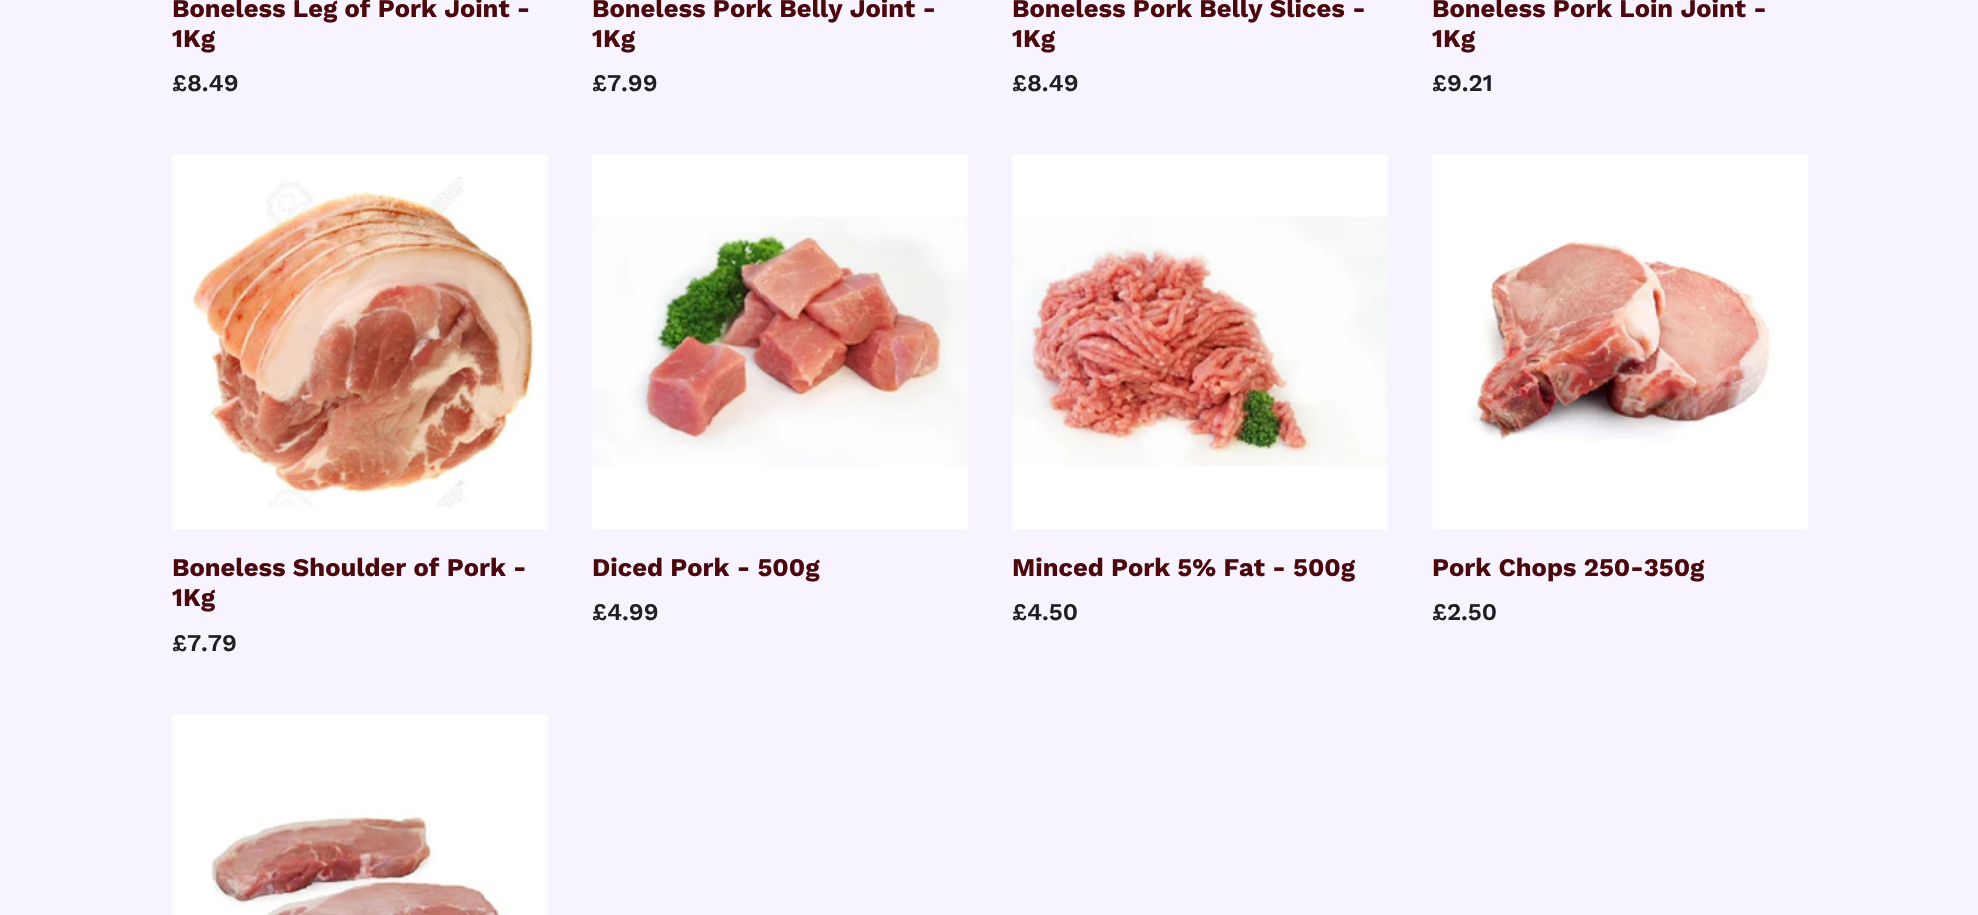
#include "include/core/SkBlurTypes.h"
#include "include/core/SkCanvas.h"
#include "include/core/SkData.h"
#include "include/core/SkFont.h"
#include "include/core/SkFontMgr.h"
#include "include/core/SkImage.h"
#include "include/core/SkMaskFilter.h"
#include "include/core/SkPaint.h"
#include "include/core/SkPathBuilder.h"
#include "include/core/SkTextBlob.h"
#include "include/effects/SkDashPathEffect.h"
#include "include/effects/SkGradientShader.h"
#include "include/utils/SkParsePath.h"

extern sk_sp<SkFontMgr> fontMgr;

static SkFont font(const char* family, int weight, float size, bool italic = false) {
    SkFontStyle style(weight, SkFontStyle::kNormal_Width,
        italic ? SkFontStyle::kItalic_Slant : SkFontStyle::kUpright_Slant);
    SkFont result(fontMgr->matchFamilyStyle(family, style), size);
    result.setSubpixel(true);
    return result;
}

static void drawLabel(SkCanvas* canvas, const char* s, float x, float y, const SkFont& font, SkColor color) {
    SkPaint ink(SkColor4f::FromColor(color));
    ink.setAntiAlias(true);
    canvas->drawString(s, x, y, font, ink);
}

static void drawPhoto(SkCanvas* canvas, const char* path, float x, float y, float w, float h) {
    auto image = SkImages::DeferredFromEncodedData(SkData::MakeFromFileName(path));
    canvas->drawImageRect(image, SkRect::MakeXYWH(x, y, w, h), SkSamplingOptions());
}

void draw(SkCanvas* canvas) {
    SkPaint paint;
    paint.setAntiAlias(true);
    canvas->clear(0xFFF8F4FF);
    SkFont font1 = font("Work Sans", 700, 25.5f);
    drawLabel(canvas, "Boneless Leg of Pork Joint -", 172, 17, font1, 0xFF4B090D);
    drawLabel(canvas, "1Kg", 172, 47, font1, 0xFF4B090D);
    SkFont font2 = font("Work Sans", 600, 24);
    drawLabel(canvas, "£8.49", 172, 91, font2, 0xFF202020);
    drawLabel(canvas, "Boneless Pork Belly Joint -", 592, 17, font1, 0xFF4B090D);
    drawLabel(canvas, "1Kg", 592, 47, font1, 0xFF4B090D);
    drawLabel(canvas, "£7.99", 592, 91, font2, 0xFF202020);
    drawLabel(canvas, "Boneless Pork Belly Slices -", 1012, 17, font1, 0xFF4B090D);
    drawLabel(canvas, "1Kg", 1012, 47, font1, 0xFF4B090D);
    drawLabel(canvas, "£8.49", 1012, 91, font2, 0xFF202020);
    drawLabel(canvas, "Boneless Pork Loin Joint -", 1432, 17, font1, 0xFF4B090D);
    drawLabel(canvas, "1Kg", 1432, 47, font1, 0xFF4B090D);
    drawLabel(canvas, "£9.21", 1432, 91, font2, 0xFF202020);
    drawPhoto(canvas, "assets/img1.png", 172, 154, 376, 376);
    drawLabel(canvas, "Boneless Shoulder of Pork -", 172, 576, font1, 0xFF4B090D);
    drawLabel(canvas, "1Kg", 172, 606, font1, 0xFF4B090D);
    drawLabel(canvas, "£7.79", 172, 651, font2, 0xFF202020);
    drawPhoto(canvas, "assets/img2.png", 592, 154, 376, 376);
    drawLabel(canvas, "Diced Pork - 500g", 592, 576, font1, 0xFF4B090D);
    drawLabel(canvas, "£4.99", 592, 620, font2, 0xFF202020);
    drawPhoto(canvas, "assets/img3.png", 1012, 154, 376, 376);
    drawLabel(canvas, "Minced Pork 5% Fat - 500g", 1012, 576, font1, 0xFF4B090D);
    drawLabel(canvas, "£4.50", 1012, 620, font2, 0xFF202020);
    drawPhoto(canvas, "assets/img4.png", 1432, 154, 376, 376);
    drawLabel(canvas, "Pork Chops 250-350g", 1432, 576, font1, 0xFF4B090D);
    drawLabel(canvas, "£2.50", 1432, 620, font2, 0xFF202020);
    drawPhoto(canvas, "assets/img5.png", 172, 714, 376, 201);
}
